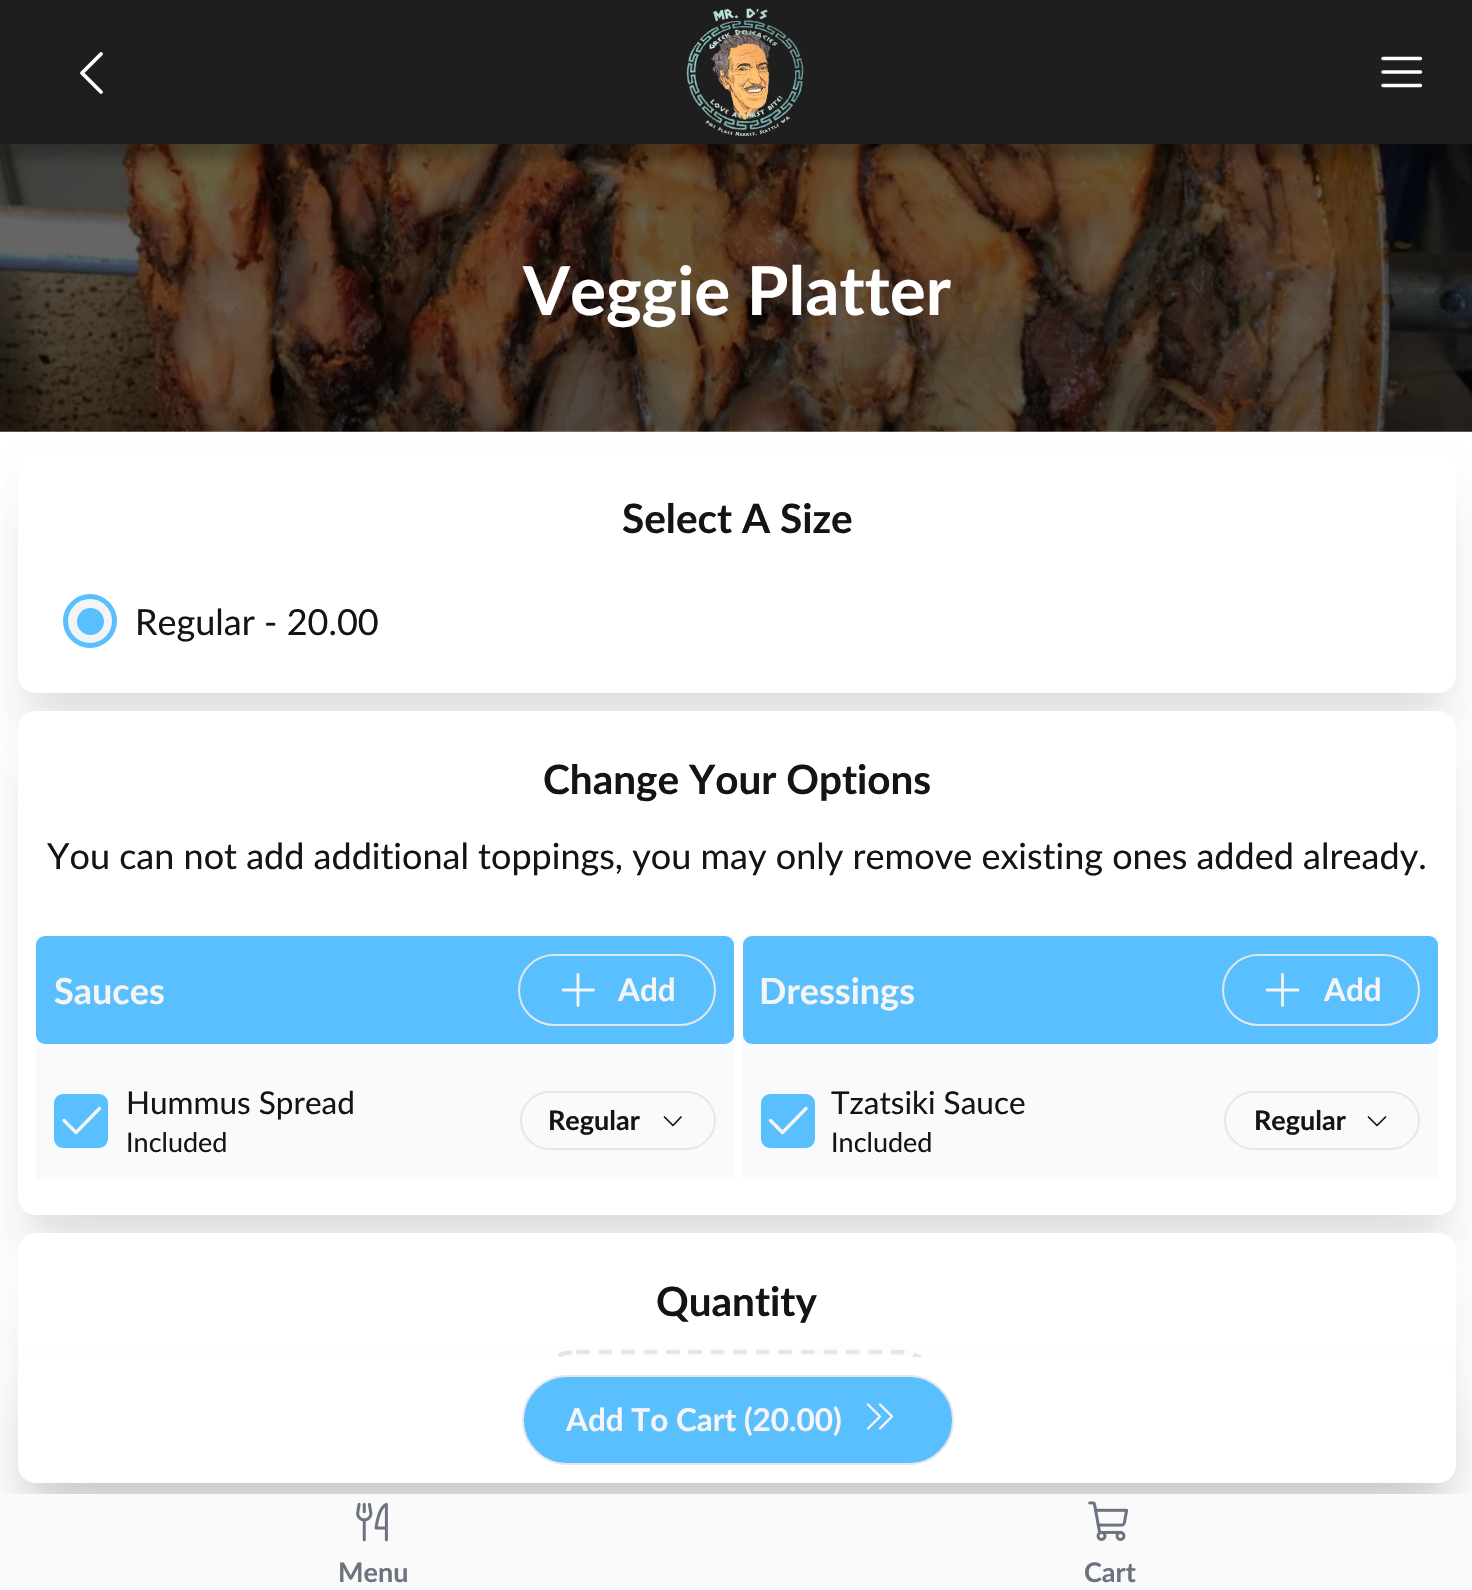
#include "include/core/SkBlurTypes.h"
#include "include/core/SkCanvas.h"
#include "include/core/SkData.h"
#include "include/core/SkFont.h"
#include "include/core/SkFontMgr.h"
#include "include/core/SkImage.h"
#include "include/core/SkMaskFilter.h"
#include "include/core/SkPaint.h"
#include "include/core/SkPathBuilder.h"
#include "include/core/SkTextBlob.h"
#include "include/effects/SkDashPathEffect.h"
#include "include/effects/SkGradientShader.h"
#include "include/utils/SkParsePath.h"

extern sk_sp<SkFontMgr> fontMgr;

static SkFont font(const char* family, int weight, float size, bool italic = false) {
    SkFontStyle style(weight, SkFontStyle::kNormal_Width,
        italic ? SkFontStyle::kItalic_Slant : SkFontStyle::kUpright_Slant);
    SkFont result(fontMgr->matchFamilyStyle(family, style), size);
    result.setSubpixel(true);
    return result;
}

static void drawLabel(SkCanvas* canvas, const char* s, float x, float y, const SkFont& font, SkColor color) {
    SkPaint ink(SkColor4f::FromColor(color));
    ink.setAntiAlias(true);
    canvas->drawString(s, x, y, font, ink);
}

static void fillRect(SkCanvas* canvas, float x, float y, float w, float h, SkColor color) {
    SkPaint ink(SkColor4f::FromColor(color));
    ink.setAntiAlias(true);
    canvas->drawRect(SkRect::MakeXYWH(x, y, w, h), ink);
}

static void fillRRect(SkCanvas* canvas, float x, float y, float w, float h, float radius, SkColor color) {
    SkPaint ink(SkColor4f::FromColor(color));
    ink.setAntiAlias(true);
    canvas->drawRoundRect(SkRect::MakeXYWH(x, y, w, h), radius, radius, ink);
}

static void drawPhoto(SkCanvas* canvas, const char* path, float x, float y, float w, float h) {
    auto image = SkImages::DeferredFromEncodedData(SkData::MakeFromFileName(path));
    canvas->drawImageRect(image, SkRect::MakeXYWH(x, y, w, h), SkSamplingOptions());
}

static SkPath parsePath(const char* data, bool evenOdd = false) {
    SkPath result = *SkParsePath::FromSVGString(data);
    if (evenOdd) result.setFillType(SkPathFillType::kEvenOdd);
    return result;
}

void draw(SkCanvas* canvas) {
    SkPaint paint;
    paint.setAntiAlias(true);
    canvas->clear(0xFFFFFFFF);
    paint.setColor(0x1A000000);
    paint.setMaskFilter(SkMaskFilter::MakeBlur(kNormal_SkBlurStyle, 28));
    canvas->drawRoundRect(SkRect::MakeXYWH(29, 506, 1416, 221), 7, 7, paint);
    paint.setMaskFilter(nullptr);
    drawPhoto(canvas, "assets/img2.png", 0, 144, 1472, 288);
    paint.setColor(0x40000000);
    paint.setMaskFilter(SkMaskFilter::MakeBlur(kNormal_SkBlurStyle, 5.5f));
    canvas->drawRect(SkRect::MakeXYWH(9, 32, 1456, 126), paint);
    paint.setMaskFilter(nullptr);
    fillRect(canvas, 0, 0, 1472, 144, 0xFF1E1E1E);
    paint.setStroke(true);
    paint.setStrokeWidth(3.8f);
    paint.setStrokeCap(SkPaint::kRound_Cap);
    paint.setStrokeJoin(SkPaint::kRound_Join);
    paint.setColor(0xFFFFFFFF);
    canvas->drawPath(parsePath("M101 92L82 73L101 54"), paint);
    drawPhoto(canvas, "assets/img1.png", 686, 8, 118, 129);
    paint.setStrokeWidth(3.4f);
    canvas->drawPath(parsePath("M1383 72H1420.5M1383 58.5H1420.5M1383 85.5H1420.5"), paint);
    SkFont font1 = font("Lato", 700, 67.5f);
    drawLabel(canvas, "Veggie Platter", 523, 315, font1, 0xFFFFFFFF);
    paint.setStroke(false);
    paint.setColor(0x0A000000);
    paint.setMaskFilter(SkMaskFilter::MakeBlur(kNormal_SkBlurStyle, 11));
    canvas->drawRoundRect(SkRect::MakeXYWH(29, 484, 1416, 220), 7, 7, paint);
    paint.setMaskFilter(nullptr);
    fillRRect(canvas, 18, 450, 1438, 243, 18, 0xFFFFFFFF);
    SkFont font2 = font("Lato", 700, 40.5f);
    drawLabel(canvas, "Select A Size", 622, 533, font2, 0xFF141414);
    paint.setColor(0xFFF3F4F6);
    canvas->drawCircle(90, 621, 24.5f, paint);
    paint.setStroke(true);
    paint.setStrokeWidth(5);
    paint.setStrokeCap(SkPaint::kButt_Cap);
    paint.setStrokeJoin(SkPaint::kMiter_Join);
    paint.setColor(0xFF59BFFF);
    canvas->drawCircle(90, 621, 24.5f, paint);
    paint.setStroke(false);
    canvas->drawCircle(90.5f, 621.5f, 13.5f, paint);
    SkFont font3 = font("Lato", 400, 36);
    drawLabel(canvas, "Regular - 20.00", 135, 635, font3, 0xFF141414);
    paint.setColor(0x0A000000);
    paint.setMaskFilter(SkMaskFilter::MakeBlur(kNormal_SkBlurStyle, 11));
    canvas->drawRoundRect(SkRect::MakeXYWH(29, 745, 1416, 481), 7, 7, paint);
    paint.setMaskFilter(nullptr);
    paint.setColor(0x1A000000);
    paint.setMaskFilter(SkMaskFilter::MakeBlur(kNormal_SkBlurStyle, 28));
    canvas->drawRoundRect(SkRect::MakeXYWH(29, 767, 1416, 482), 7, 7, paint);
    paint.setMaskFilter(nullptr);
    fillRRect(canvas, 18, 711, 1438, 504, 18, 0xFFFFFFFF);
    drawLabel(canvas, "Change Your Options", 543, 794, font2, 0xFF141414);
    drawLabel(canvas, "You can not add additional toppings, you may only remove existing ones added already.", 47, 869, font3, 0xFF141414);
    fillRect(canvas, 36, 936, 698, 243, 0xFFF9FAFB);
    fillRRect(canvas, 36, 936, 698, 108, 9, 0xFF59BFFF);
    SkFont font4 = font("Lato", 700, 36);
    drawLabel(canvas, "Sauces", 54, 1004, font4, 0xFFF5F5F5);
    paint.setStroke(true);
    paint.setStrokeWidth(2);
    paint.setColor(0xFFE5E7EB);
    canvas->drawRoundRect(SkRect::MakeXYWH(519, 955, 196, 70), 35, 35, paint);
    paint.setStrokeWidth(2.8f);
    paint.setStrokeCap(SkPaint::kRound_Cap);
    paint.setStrokeJoin(SkPaint::kRound_Join);
    paint.setColor(0xFFF5F5F5);
    canvas->drawPath(parsePath("M563 990H593.5M578 974.5V1005.5"), paint);
    SkFont font5 = font("Lato", 700, 31.5f);
    drawLabel(canvas, "Add", 618, 1001, font5, 0xFFF5F5F5);
    fillRRect(canvas, 54, 1094, 54, 54, 9, 0xFF59BFFF);
    paint.setStrokeWidth(3.4f);
    canvas->drawPath(parsePath("M99.5 1108.5L76 1132.5L64 1120.5"), paint);
    SkFont font6 = font("Lato", 400, 31.5f);
    drawLabel(canvas, "Hummus Spread", 126, 1114, font6, 0xFF141414);
    SkFont font7 = font("Lato", 400, 27);
    drawLabel(canvas, "Included", 126, 1152, font7, 0xFF141414);
    paint.setStrokeWidth(2);
    paint.setStrokeCap(SkPaint::kButt_Cap);
    paint.setStrokeJoin(SkPaint::kMiter_Join);
    paint.setColor(0xFFE5E7EB);
    canvas->drawRoundRect(SkRect::MakeXYWH(521, 1092, 194, 57), 28.5f, 28.5f, paint);
    SkFont font8 = font("Lato", 700, 27);
    drawLabel(canvas, "Regular", 548, 1130, font8, 0xFF141414);
    paint.setStrokeWidth(1.7f);
    paint.setStrokeCap(SkPaint::kRound_Cap);
    paint.setStrokeJoin(SkPaint::kRound_Join);
    paint.setColor(0xFF141414);
    canvas->drawPath(parsePath("M681 1117L673 1125.5L664.5 1117"), paint);
    fillRect(canvas, 743, 936, 695, 243, 0xFFF9FAFB);
    fillRRect(canvas, 743, 936, 695, 108, 9, 0xFF59BFFF);
    drawLabel(canvas, "Dressings", 759, 1004, font4, 0xFFF5F5F5);
    paint.setStrokeWidth(2);
    paint.setStrokeCap(SkPaint::kButt_Cap);
    paint.setStrokeJoin(SkPaint::kMiter_Join);
    paint.setColor(0xFFE5E7EB);
    canvas->drawRoundRect(SkRect::MakeXYWH(1223, 955, 196, 70), 35, 35, paint);
    paint.setStrokeWidth(2.8f);
    paint.setStrokeCap(SkPaint::kRound_Cap);
    paint.setStrokeJoin(SkPaint::kRound_Join);
    paint.setColor(0xFFF5F5F5);
    canvas->drawPath(parsePath("M1267 990H1298M1282.5 974.5V1005.5"), paint);
    drawLabel(canvas, "Add", 1324, 1001, font5, 0xFFF5F5F5);
    fillRRect(canvas, 761, 1094, 54, 54, 9, 0xFF59BFFF);
    paint.setStrokeWidth(3.4f);
    canvas->drawPath(parsePath("M806 1108.5L782.5 1132.5L770.5 1120.5"), paint);
    drawLabel(canvas, "Tzatsiki Sauce", 831, 1114, font6, 0xFF141414);
    drawLabel(canvas, "Included", 831, 1152, font7, 0xFF141414);
    paint.setStrokeWidth(2);
    paint.setStrokeCap(SkPaint::kButt_Cap);
    paint.setStrokeJoin(SkPaint::kMiter_Join);
    paint.setColor(0xFFE5E7EB);
    canvas->drawRoundRect(SkRect::MakeXYWH(1225, 1092, 194, 57), 28.5f, 28.5f, paint);
    drawLabel(canvas, "Regular", 1254, 1130, font8, 0xFF141414);
    paint.setStrokeWidth(1.7f);
    paint.setStrokeCap(SkPaint::kRound_Cap);
    paint.setStrokeJoin(SkPaint::kRound_Join);
    paint.setColor(0xFF141414);
    canvas->drawPath(parsePath("M1385.5 1117L1377 1125.5L1368.5 1117"), paint);
    paint.setStroke(false);
    paint.setColor(0x1A000000);
    paint.setMaskFilter(SkMaskFilter::MakeBlur(kNormal_SkBlurStyle, 28));
    canvas->drawRoundRect(SkRect::MakeXYWH(29, 1289, 1416, 212), 7, 7, paint);
    paint.setMaskFilter(nullptr);
    fillRRect(canvas, 18, 1233, 1438, 234, 18, 0xFFFFFFFF);
    drawLabel(canvas, "Quantity", 656, 1316, font2, 0xFF141414);
    paint.setStroke(true);
    paint.setStrokeWidth(4.5f);
    paint.setStrokeCap(SkPaint::kButt_Cap);
    paint.setStrokeJoin(SkPaint::kMiter_Join);
    paint.setColor(0xFFE5E7EB);
    paint.setPathEffect(SkDashPathEffect::Make({{13.5f, 9}}, 0));
    canvas->drawPath(parsePath("M576 1352H898C924 1352 945 1373.5 945 1399.5C945 1425.5 924 1447 898 1447H576C550 1447 529 1425.5 529 1399.5C529 1373.5 550 1352 576 1352Z"), paint);
    paint.setPathEffect(nullptr);
    paint.setStroke(false);
    paint.setColor(0x0A000000);
    paint.setMaskFilter(SkMaskFilter::MakeBlur(kNormal_SkBlurStyle, 11));
    canvas->drawRoundRect(SkRect::MakeXYWH(29, 1391, 1416, 103), 7, 7, paint);
    paint.setMaskFilter(nullptr);
    paint.setColor(0x1A000000);
    paint.setMaskFilter(SkMaskFilter::MakeBlur(kNormal_SkBlurStyle, 28));
    canvas->drawRoundRect(SkRect::MakeXYWH(29, 1413, 1416, 104), 7, 7, paint);
    paint.setMaskFilter(nullptr);
    fillRRect(canvas, 18, 1357, 1438, 126, 18, 0xFFFFFFFF);
    paint.setColor(0xFF59BFFF);
    canvas->drawRoundRect(SkRect::MakeXYWH(523, 1376, 430, 88), 44, 44, paint);
    paint.setStroke(true);
    paint.setStrokeWidth(2);
    paint.setColor(0xFFE5E7EB);
    canvas->drawRoundRect(SkRect::MakeXYWH(523, 1376, 430, 88), 44, 44, paint);
    drawLabel(canvas, "Add To Cart (20.00)", 566, 1431, font5, 0xFFF5F5F5);
    paint.setStrokeWidth(2.4f);
    paint.setStrokeCap(SkPaint::kRound_Cap);
    paint.setStrokeJoin(SkPaint::kRound_Join);
    paint.setColor(0xFFF5F5F5);
    canvas->drawPath(parsePath("M868 1404.5L880 1416.5L868 1428.5M880 1404.5L892 1416.5L880 1428.5"), paint);
    fillRect(canvas, 0, 1494, 1472, 96, 0xFFFAFAFA);
    drawPhoto(canvas, "assets/img3.png", 356, 1502, 32, 40);
    drawLabel(canvas, "Menu", 338, 1582, font8, 0xFF6B7280);
    drawPhoto(canvas, "assets/img4.png", 1088, 1501, 41, 40);
    drawLabel(canvas, "Cart", 1084, 1582, font8, 0xFF6B7280);
}
